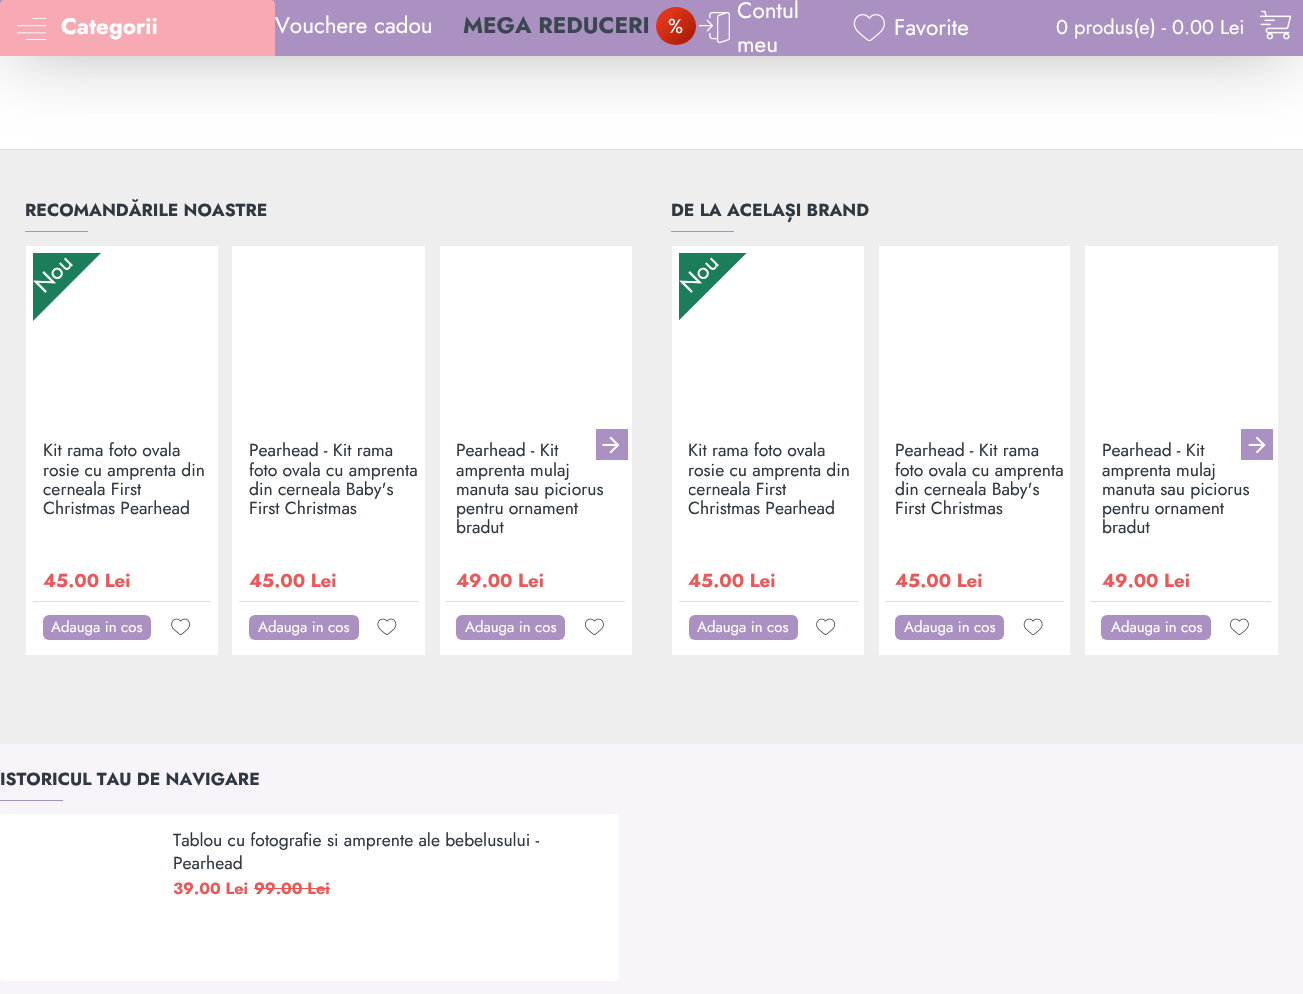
#include "include/core/SkBlurTypes.h"
#include "include/core/SkCanvas.h"
#include "include/core/SkData.h"
#include "include/core/SkFont.h"
#include "include/core/SkFontMgr.h"
#include "include/core/SkImage.h"
#include "include/core/SkMaskFilter.h"
#include "include/core/SkPaint.h"
#include "include/core/SkPathBuilder.h"
#include "include/core/SkTextBlob.h"
#include "include/effects/SkDashPathEffect.h"
#include "include/effects/SkGradientShader.h"
#include "include/utils/SkParsePath.h"

extern sk_sp<SkFontMgr> fontMgr;

static SkFont font(const char* family, int weight, float size, bool italic = false) {
    SkFontStyle style(weight, SkFontStyle::kNormal_Width,
        italic ? SkFontStyle::kItalic_Slant : SkFontStyle::kUpright_Slant);
    SkFont result(fontMgr->matchFamilyStyle(family, style), size);
    result.setSubpixel(true);
    return result;
}

static void drawLabel(SkCanvas* canvas, const char* s, float x, float y, const SkFont& font, SkColor color) {
    SkPaint ink(SkColor4f::FromColor(color));
    ink.setAntiAlias(true);
    canvas->drawString(s, x, y, font, ink);
}

static void fillRect(SkCanvas* canvas, float x, float y, float w, float h, SkColor color) {
    SkPaint ink(SkColor4f::FromColor(color));
    ink.setAntiAlias(true);
    canvas->drawRect(SkRect::MakeXYWH(x, y, w, h), ink);
}

static void fillRRect(SkCanvas* canvas, float x, float y, float w, float h, float radius, SkColor color) {
    SkPaint ink(SkColor4f::FromColor(color));
    ink.setAntiAlias(true);
    canvas->drawRoundRect(SkRect::MakeXYWH(x, y, w, h), radius, radius, ink);
}

static void drawPhoto(SkCanvas* canvas, const char* path, float x, float y, float w, float h) {
    auto image = SkImages::DeferredFromEncodedData(SkData::MakeFromFileName(path));
    canvas->drawImageRect(image, SkRect::MakeXYWH(x, y, w, h), SkSamplingOptions());
}

static SkPath parsePath(const char* data, bool evenOdd = false) {
    SkPath result = *SkParsePath::FromSVGString(data);
    if (evenOdd) result.setFillType(SkPathFillType::kEvenOdd);
    return result;
}

void draw(SkCanvas* canvas) {
    SkPaint paint;
    paint.setAntiAlias(true);
    canvas->clear(0xFFFFFFFF);
    fillRect(canvas, 0, 149, 1303, 1, 0xFFDDDDDD);
    fillRect(canvas, 0, 150, 1303, 594, 0xFFEEEEEE);
    paint.setColor(0x4D000000);
    paint.setMaskFilter(SkMaskFilter::MakeBlur(kNormal_SkBlurStyle, 37.5f));
    canvas->drawRect(SkRect::MakeXYWH(13, -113, 1278, 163), paint);
    paint.setMaskFilter(nullptr);
    fillRect(canvas, 0, 0, 1303, 56, 0xFFAB91C1);
    paint.setColor(0xFFF7AAB4);
    canvas->drawPath(parsePath("M4 0H271C273 0 275 2 275 4V56H0V4C0 2 2 0 4 0Z"), paint);
    drawPhoto(canvas, "assets/img1.png", 17, 18, 29, 22);
    SkFont font1 = font("Jost", 700, 22.5f);
    drawLabel(canvas, "Categorii", 61, 34, font1, 0xFFFFFFFF);
    SkFont font2 = font("Jost", 400, 22.5f);
    drawLabel(canvas, "Vouchere cadou", 275, 33, font2, 0xFFFFFFFF);
    drawLabel(canvas, "MEGA REDUCERI", 463, 33, font1, 0xFF3A4750);
    {
        const SkColor colors[] = {0xFFA01600, 0xFFDF3419};
        const float stops[] = {0, 0.74f};
        const SkPoint ends[] = {{696, 46}, {657, 6.9f}};
        paint.setShader(SkGradientShader::MakeLinear(ends, colors, stops, 2, SkTileMode::kClamp));
        paint.setAlpha(255);
    }
    canvas->drawOval(SkRect::MakeXYWH(656, 7, 40, 38), paint);
    SkFont font3 = font("Jost", 400, 20);
    drawLabel(canvas, "%", 668, 33, font3, 0xFFFFFFFF);
    drawPhoto(canvas, "assets/img2.png", 698, 11, 32, 33);
    drawLabel(canvas, "Contul", 737, 18, font2, 0xFFFFFFFF);
    drawLabel(canvas, "meu", 737, 52, font2, 0xFFFFFFFF);
    drawPhoto(canvas, "assets/img3.png", 853, 14, 32, 28);
    drawLabel(canvas, "Favorite", 894, 35, font2, 0xFFFFFFFF);
    drawLabel(canvas, "0 produs(e) - 0.00 Lei", 1056, 34, font3, 0xFFFFFFFF);
    drawPhoto(canvas, "assets/img4.png", 1260, 10, 32, 30);
    SkFont font4 = font("Jost", 700, 17.5f);
    drawLabel(canvas, "RECOMANDĂRILE NOASTRE", 25, 216, font4, 0xFF303841);
    fillRect(canvas, 25, 231, 63, 1, 0xFFAB91C1);
    fillRect(canvas, 26, 246, 192, 409, 0xFFFFFFFF);
    canvas->save();
    canvas->clipRect(SkRect::MakeXYWH(33, 253, 178, 178));
    paint.setShader(nullptr);
    paint.setColor(0xFF1C7D5A);
    canvas->drawPath(parsePath("M-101 366L146 118L191 163L-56 410Z"), paint);
    canvas->restore();
    SkFont font5 = font("Jost", 400, 23);
    canvas->save();
    canvas->rotate(-45, 44, 294);
    drawLabel(canvas, "Nou", 44, 294, font5, 0xFFFFFFFF);
    canvas->restore();
    SkFont font6 = font("Jost", 400, 17.5f);
    drawLabel(canvas, "Kit rama foto ovala", 43, 456, font6, 0xFF303841);
    drawLabel(canvas, "rosie cu amprenta din", 43, 476, font6, 0xFF303841);
    drawLabel(canvas, "cerneala First", 43, 495, font6, 0xFF303841);
    drawLabel(canvas, "Christmas Pearhead", 43, 514, font6, 0xFF303841);
    SkFont font7 = font("Jost", 700, 18.75f);
    drawLabel(canvas, "45.00 Lei", 43, 587, font7, 0xFFEB5858);
    fillRect(canvas, 33, 601, 178, 1, 0xFFDDDDDD);
    fillRRect(canvas, 43, 615, 108, 25, 6, 0xFFAB91C1);
    SkFont font8 = font("Jost", 400, 15);
    drawLabel(canvas, "Adauga in cos", 51, 632, font8, 0xFFFFFFFF);
    drawPhoto(canvas, "assets/img5.png", 171, 618, 19, 17);
    fillRect(canvas, 232, 246, 193, 409, 0xFFFFFFFF);
    drawLabel(canvas, "Pearhead - Kit rama", 249, 456, font6, 0xFF303841);
    drawLabel(canvas, "foto ovala cu amprenta", 249, 476, font6, 0xFF303841);
    drawLabel(canvas, "din cerneala Baby's", 249, 495, font6, 0xFF303841);
    drawLabel(canvas, "First Christmas", 249, 514, font6, 0xFF303841);
    drawLabel(canvas, "45.00 Lei", 249, 587, font7, 0xFFEB5858);
    fillRect(canvas, 239, 601, 180, 1, 0xFFDDDDDD);
    fillRRect(canvas, 249, 615, 110, 25, 6, 0xFFAB91C1);
    drawLabel(canvas, "Adauga in cos", 258, 632, font8, 0xFFFFFFFF);
    drawPhoto(canvas, "assets/img6.png", 377, 618, 20, 17);
    fillRect(canvas, 440, 246, 192, 409, 0xFFFFFFFF);
    drawLabel(canvas, "Pearhead - Kit", 456, 456, font6, 0xFF303841);
    drawLabel(canvas, "amprenta mulaj", 456, 476, font6, 0xFF303841);
    drawLabel(canvas, "manuta sau piciorus", 456, 495, font6, 0xFF303841);
    drawLabel(canvas, "pentru ornament", 456, 514, font6, 0xFF303841);
    drawLabel(canvas, "bradut", 456, 533, font6, 0xFF303841);
    drawLabel(canvas, "49.00 Lei", 456, 587, font7, 0xFFEB5858);
    fillRect(canvas, 446, 601, 179, 1, 0xFFDDDDDD);
    fillRRect(canvas, 456, 615, 109, 25, 6, 0xFFAB91C1);
    drawLabel(canvas, "Adauga in cos", 465, 632, font8, 0xFFFFFFFF);
    drawPhoto(canvas, "assets/img7.png", 585, 618, 19, 17);
    fillRect(canvas, 596, 429, 32, 31, 0xFFAB91C1);
    drawPhoto(canvas, "assets/img8.png", 602, 436, 18, 18);
    drawLabel(canvas, "DE LA ACELAȘI BRAND", 671, 216, font4, 0xFF303841);
    fillRect(canvas, 671, 231, 63, 1, 0xFFAB91C1);
    fillRect(canvas, 672, 246, 192, 409, 0xFFFFFFFF);
    canvas->save();
    canvas->clipRect(SkRect::MakeXYWH(679, 253, 179, 178));
    canvas->drawPath(parsePath("M545 366L792 118L837 163L589 410Z"), paint);
    canvas->restore();
    canvas->save();
    canvas->rotate(-45, 690, 294);
    drawLabel(canvas, "Nou", 690, 294, font5, 0xFFFFFFFF);
    canvas->restore();
    drawLabel(canvas, "Kit rama foto ovala", 688, 456, font6, 0xFF303841);
    drawLabel(canvas, "rosie cu amprenta din", 688, 476, font6, 0xFF303841);
    canvas->save();
    canvas->clipRect(SkRect::MakeXYWH(689, 441, 169, 78));
    drawLabel(canvas, "cerneala First", 688, 495, font6, 0xFF303841);
    canvas->restore();
    drawLabel(canvas, "Christmas Pearhead", 688, 514, font6, 0xFF303841);
    drawLabel(canvas, "45.00 Lei", 688, 587, font7, 0xFFEB5858);
    fillRect(canvas, 679, 601, 179, 1, 0xFFDDDDDD);
    fillRRect(canvas, 689, 615, 109, 25, 6, 0xFFAB91C1);
    drawLabel(canvas, "Adauga in cos", 697, 632, font8, 0xFFFFFFFF);
    drawPhoto(canvas, "assets/img5.png", 816, 618, 19, 17);
    fillRect(canvas, 879, 246, 191, 409, 0xFFFFFFFF);
    drawLabel(canvas, "Pearhead - Kit rama", 895, 456, font6, 0xFF303841);
    drawLabel(canvas, "foto ovala cu amprenta", 895, 476, font6, 0xFF303841);
    drawLabel(canvas, "din cerneala Baby's", 895, 495, font6, 0xFF303841);
    drawLabel(canvas, "First Christmas", 895, 514, font6, 0xFF303841);
    drawLabel(canvas, "45.00 Lei", 895, 587, font7, 0xFFEB5858);
    fillRect(canvas, 885, 601, 179, 1, 0xFFDDDDDD);
    fillRRect(canvas, 895, 615, 109, 25, 6, 0xFFAB91C1);
    drawLabel(canvas, "Adauga in cos", 904, 632, font8, 0xFFFFFFFF);
    drawPhoto(canvas, "assets/img9.png", 1023, 618, 20, 17);
    fillRect(canvas, 1085, 246, 193, 409, 0xFFFFFFFF);
    drawLabel(canvas, "Pearhead - Kit", 1102, 456, font6, 0xFF303841);
    drawLabel(canvas, "amprenta mulaj", 1102, 476, font6, 0xFF303841);
    drawLabel(canvas, "manuta sau piciorus", 1102, 495, font6, 0xFF303841);
    drawLabel(canvas, "pentru ornament", 1102, 514, font6, 0xFF303841);
    drawLabel(canvas, "bradut", 1102, 533, font6, 0xFF303841);
    drawLabel(canvas, "49.00 Lei", 1102, 587, font7, 0xFFEB5858);
    fillRect(canvas, 1091, 601, 180, 1, 0xFFDDDDDD);
    fillRRect(canvas, 1101, 615, 110, 25, 6, 0xFFAB91C1);
    drawLabel(canvas, "Adauga in cos", 1111, 632, font8, 0xFFFFFFFF);
    drawPhoto(canvas, "assets/img7.png", 1230, 618, 19, 17);
    fillRect(canvas, 1241, 429, 32, 31, 0xFFAB91C1);
    drawPhoto(canvas, "assets/img10.png", 1248, 436, 18, 18);
    fillRect(canvas, 0, 744, 1303, 250, 0xFFF7F5F9);
    drawLabel(canvas, "ISTORICUL TAU DE NAVIGARE", 0, 785, font4, 0xFF303841);
    fillRect(canvas, 0, 800, 63, 1, 0xFFAB91C1);
    fillRRect(canvas, 0, 814, 619, 167, 4, 0xFFFFFFFF);
    drawLabel(canvas, "Tablou cu fotografie si amprente ale bebelusului -", 173, 846, font6, 0xFF303841);
    drawLabel(canvas, "Pearhead", 173, 869, font6, 0xFF303841);
    SkFont font9 = font("Jost", 700, 16.25f);
    drawLabel(canvas, "39.00 Lei", 173, 894, font9, 0xFFEB5858);
    drawLabel(canvas, "99.00 Lei", 254, 894, font9, 0xFFEB5858);
    fillRect(canvas, 254, 888, 76, 1, 0xFFEE5353);
}
